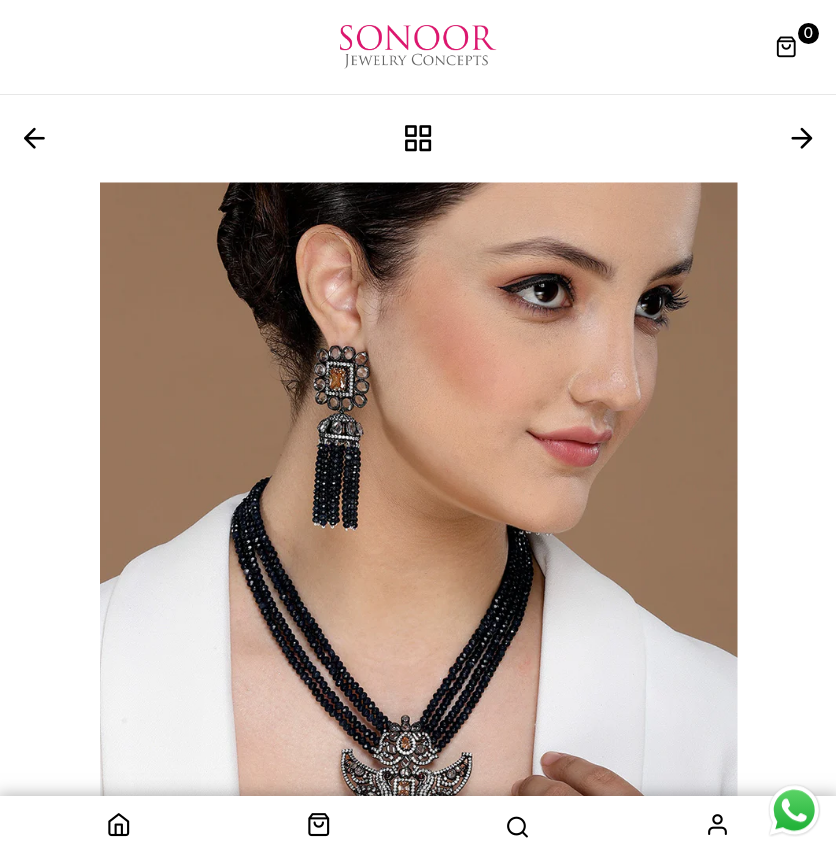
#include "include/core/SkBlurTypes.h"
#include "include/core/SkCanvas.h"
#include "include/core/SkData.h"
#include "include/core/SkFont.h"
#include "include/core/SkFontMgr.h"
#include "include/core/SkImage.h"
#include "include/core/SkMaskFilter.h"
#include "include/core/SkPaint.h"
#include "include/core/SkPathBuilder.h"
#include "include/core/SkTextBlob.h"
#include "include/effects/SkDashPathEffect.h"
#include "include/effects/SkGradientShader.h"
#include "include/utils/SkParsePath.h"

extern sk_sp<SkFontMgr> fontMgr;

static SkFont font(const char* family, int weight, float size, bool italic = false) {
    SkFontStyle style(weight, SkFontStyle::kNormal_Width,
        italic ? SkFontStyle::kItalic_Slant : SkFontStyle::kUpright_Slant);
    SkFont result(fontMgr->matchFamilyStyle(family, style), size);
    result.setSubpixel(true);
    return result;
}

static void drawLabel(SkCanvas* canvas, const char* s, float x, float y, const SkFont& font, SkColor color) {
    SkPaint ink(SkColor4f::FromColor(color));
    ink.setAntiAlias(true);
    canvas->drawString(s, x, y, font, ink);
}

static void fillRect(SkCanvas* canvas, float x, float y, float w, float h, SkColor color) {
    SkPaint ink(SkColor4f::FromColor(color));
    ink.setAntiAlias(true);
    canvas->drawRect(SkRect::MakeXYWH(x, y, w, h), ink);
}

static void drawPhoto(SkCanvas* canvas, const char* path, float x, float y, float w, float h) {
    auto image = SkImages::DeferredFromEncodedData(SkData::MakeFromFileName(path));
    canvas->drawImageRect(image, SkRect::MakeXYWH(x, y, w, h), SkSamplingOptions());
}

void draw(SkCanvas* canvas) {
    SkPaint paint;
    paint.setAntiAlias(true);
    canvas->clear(0xFFFFFFFF);
    fillRect(canvas, 0, 94, 836, 1, 0xFFE7E7E7);
    drawPhoto(canvas, "assets/img1.png", 340, 25, 157, 44);
    paint.setColor(0xFF000000);
    canvas->drawCircle(808.5f, 33.5f, 10.5f, paint);
    SkFont font1 = font("Lato", 400, 15);
    drawLabel(canvas, "0", 804, 38, font1, 0xFFFFFFFF);
    drawPhoto(canvas, "assets/img2.png", 776, 36, 20, 22);
    drawPhoto(canvas, "assets/img10.png", 100, 182, 638, 614);
    paint.setColor(0x4D000000);
    paint.setMaskFilter(SkMaskFilter::MakeBlur(kNormal_SkBlurStyle, 7.5f));
    canvas->drawRect(SkRect::MakeXYWH(-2, 795, 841, 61), paint);
    paint.setMaskFilter(nullptr);
    fillRect(canvas, 0, 796, 836, 56, 0xFFFFFFFF);
    drawPhoto(canvas, "assets/img3.png", 108, 813, 22, 24);
    drawPhoto(canvas, "assets/img4.png", 308, 813, 22, 24);
    drawPhoto(canvas, "assets/img5.png", 507, 816, 21, 22);
    drawPhoto(canvas, "assets/img6.png", 708, 814, 19, 21);
    drawPhoto(canvas, "assets/img7.png", 24, 127, 21, 22);
    drawPhoto(canvas, "assets/img8.png", 405, 125, 27, 27);
    drawPhoto(canvas, "assets/img9.png", 791, 127, 22, 22);
    drawPhoto(canvas, "assets/img11.png", 768, 784, 53, 53);
}
